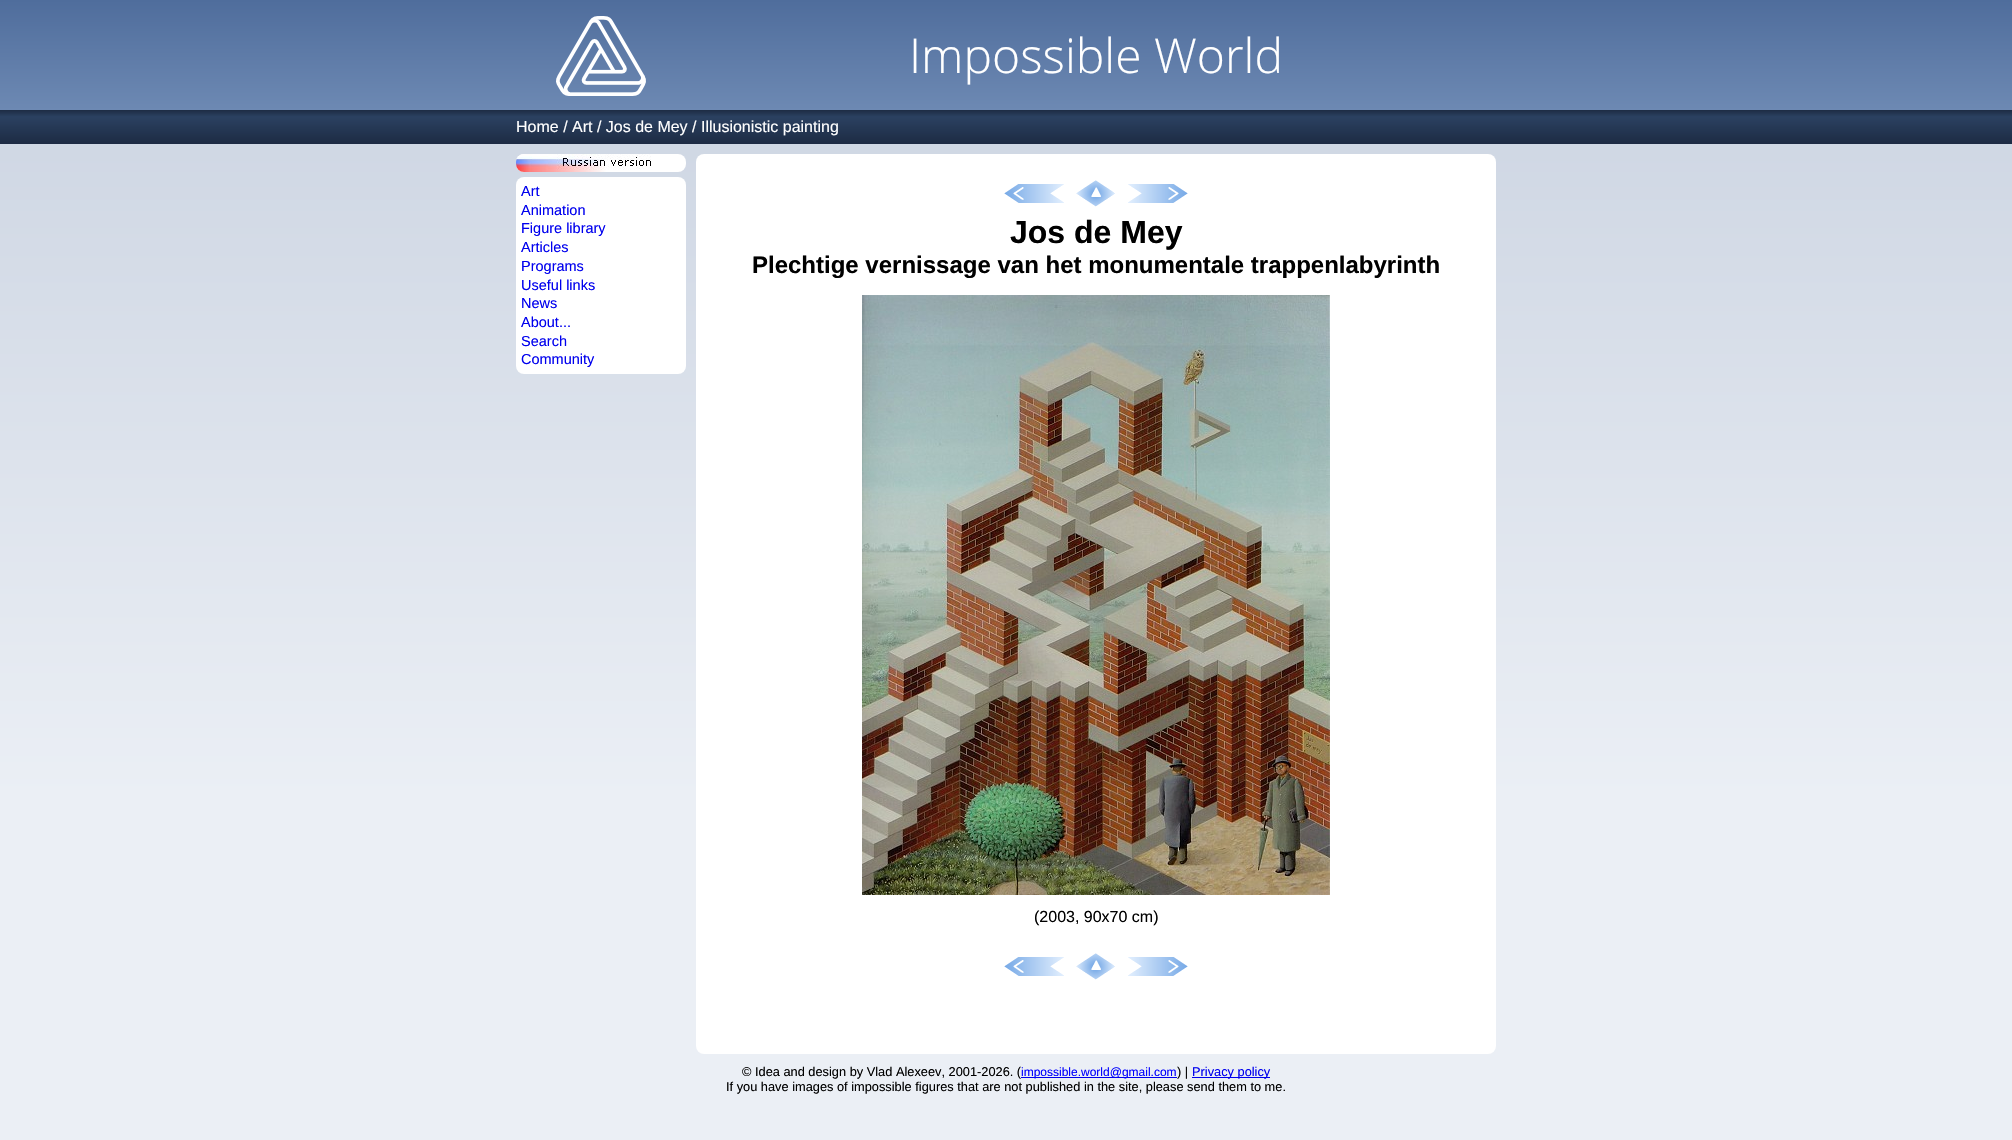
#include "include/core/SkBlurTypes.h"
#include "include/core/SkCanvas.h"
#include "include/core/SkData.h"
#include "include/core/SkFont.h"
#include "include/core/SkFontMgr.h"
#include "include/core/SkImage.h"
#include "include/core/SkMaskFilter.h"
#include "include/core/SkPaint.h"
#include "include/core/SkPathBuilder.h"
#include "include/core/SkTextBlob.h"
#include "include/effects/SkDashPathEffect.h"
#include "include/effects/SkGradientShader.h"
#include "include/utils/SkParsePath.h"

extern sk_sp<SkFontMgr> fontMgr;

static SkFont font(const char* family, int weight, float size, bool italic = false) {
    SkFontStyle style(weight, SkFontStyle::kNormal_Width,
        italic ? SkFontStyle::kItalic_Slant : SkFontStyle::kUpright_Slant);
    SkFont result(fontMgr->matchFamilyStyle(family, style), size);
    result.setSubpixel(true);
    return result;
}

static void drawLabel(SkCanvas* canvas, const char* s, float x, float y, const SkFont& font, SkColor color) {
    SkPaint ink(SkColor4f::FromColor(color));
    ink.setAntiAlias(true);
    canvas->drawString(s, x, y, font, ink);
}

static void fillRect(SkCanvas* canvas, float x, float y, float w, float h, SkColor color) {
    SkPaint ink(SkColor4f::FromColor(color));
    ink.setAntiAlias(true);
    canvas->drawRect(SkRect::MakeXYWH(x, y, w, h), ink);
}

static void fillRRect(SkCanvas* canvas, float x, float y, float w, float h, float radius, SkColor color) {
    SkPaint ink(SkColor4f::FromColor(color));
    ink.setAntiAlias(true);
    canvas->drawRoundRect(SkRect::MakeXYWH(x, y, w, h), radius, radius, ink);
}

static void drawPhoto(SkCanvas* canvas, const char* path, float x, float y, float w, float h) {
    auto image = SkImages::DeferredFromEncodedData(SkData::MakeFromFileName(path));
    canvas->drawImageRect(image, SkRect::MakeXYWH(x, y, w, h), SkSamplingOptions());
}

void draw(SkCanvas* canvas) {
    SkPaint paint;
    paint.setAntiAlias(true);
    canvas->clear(0xFFFFFFFF);
    {
        const SkColor colors[] = {0xFFCED6E3, 0xFFEBEFF5};
        const float stops[] = {0.09f, 0.7f};
        const SkPoint ends[] = {{1006, 0}, {1006, 1140}};
        paint.setShader(SkGradientShader::MakeLinear(ends, colors, stops, 2, SkTileMode::kClamp));
        paint.setAlpha(255);
    }
    canvas->drawRect(SkRect::MakeXYWH(0, 144, 2012, 996), paint);
    {
        const SkColor colors[] = {0xFF4F6D9C, 0xFF6D89B3};
        const float stops[] = {0, 1};
        const SkPoint ends[] = {{1006, 0}, {1006, 110}};
        paint.setShader(SkGradientShader::MakeLinear(ends, colors, stops, 2, SkTileMode::kClamp));
        paint.setAlpha(255);
    }
    canvas->drawRect(SkRect::MakeXYWH(0, 0, 2012, 110), paint);
    drawPhoto(canvas, "assets/img1.png", 556, 16, 90, 80);
    SkFont font1 = font("Open Sans", 300, 48);
    drawLabel(canvas, "Impossible World", 909, 73, font1, 0xFFFFFFFF);
    {
        const SkColor colors[] = {0xFF1D2B43, 0xFF2B4161, 0xFF1D2B43};
        const float stops[] = {0, 0.2f, 1};
        const SkPoint ends[] = {{1006, 110}, {1006, 144}};
        paint.setShader(SkGradientShader::MakeLinear(ends, colors, stops, 3, SkTileMode::kClamp));
        paint.setAlpha(255);
    }
    canvas->drawRect(SkRect::MakeXYWH(0, 110, 2012, 34), paint);
    SkFont font2 = font("Liberation Sans", 400, 16);
    drawLabel(canvas, "Home / Art / Jos de Mey / Illusionistic painting", 516, 132, font2, 0xFFFFFFFF);
    fillRRect(canvas, 516, 154, 170, 18, 8, 0xFFFFFFFF);
    drawPhoto(canvas, "assets/img2.png", 516, 154, 135, 18);
    fillRRect(canvas, 516, 177, 170, 197, 8, 0xFFFFFFFF);
    SkFont font3 = font("Liberation Sans", 400, 14.5f);
    drawLabel(canvas, "Art", 521, 196, font3, 0xFF0000EE);
    drawLabel(canvas, "Animation", 521, 215, font3, 0xFF0000EE);
    drawLabel(canvas, "Figure library", 521, 233, font3, 0xFF0000EE);
    drawLabel(canvas, "Articles", 521, 252, font3, 0xFF0000EE);
    drawLabel(canvas, "Programs", 521, 271, font3, 0xFF0000EE);
    drawLabel(canvas, "Useful links", 521, 290, font3, 0xFF0000EE);
    drawLabel(canvas, "News", 521, 308, font3, 0xFF0000EE);
    drawLabel(canvas, "About...", 521, 327, font3, 0xFF0000EE);
    drawLabel(canvas, "Search", 521, 346, font3, 0xFF0000EE);
    drawLabel(canvas, "Community", 521, 364, font3, 0xFF0000EE);
    fillRRect(canvas, 696, 154, 800, 900, 8, 0xFFFFFFFF);
    drawPhoto(canvas, "assets/img3.png", 1004, 184, 60, 19);
    drawPhoto(canvas, "assets/img4.png", 1076, 180, 39, 27);
    drawPhoto(canvas, "assets/img5.png", 1128, 184, 60, 19);
    SkFont font4 = font("Liberation Sans", 700, 32);
    drawLabel(canvas, "Jos de Mey", 1010, 243, font4, 0xFF000000);
    SkFont font5 = font("Liberation Sans", 700, 24);
    drawLabel(canvas, "Plechtige vernissage van het monumentale trappenlabyrinth", 752, 273, font5, 0xFF000000);
    drawPhoto(canvas, "assets/img6.png", 862, 295, 468, 600);
    drawLabel(canvas, "(2003, 90x70 cm)", 1034, 922, font2, 0xFF000000);
    drawPhoto(canvas, "assets/img3.png", 1004, 957, 60, 19);
    drawPhoto(canvas, "assets/img4.png", 1076, 953, 39, 27);
    drawPhoto(canvas, "assets/img5.png", 1128, 957, 60, 19);
    SkFont font6 = font("Liberation Sans", 400, 12.8f);
    drawLabel(canvas, "© Idea and design by Vlad Alexeev, 2001-2026. (", 742, 1076, font6, 0xFF000000);
    fillRect(canvas, 1021, 1077, 156, 1, 0xFF0000EE);
    SkFont font7 = font("Liberation Sans", 400, 12);
    drawLabel(canvas, "impossible.world@gmail.com", 1021, 1076, font7, 0xFF0000FF);
    drawLabel(canvas, ") |", 1177, 1076, font6, 0xFF000000);
    fillRect(canvas, 1192, 1077, 78, 1, 0xFF0000EE);
    drawLabel(canvas, "Privacy policy", 1192, 1076, font6, 0xFF0000EE);
    drawLabel(canvas, "If you have images of impossible figures that are not published in the site, please send them to me.", 726, 1091, font6, 0xFF000000);
}
